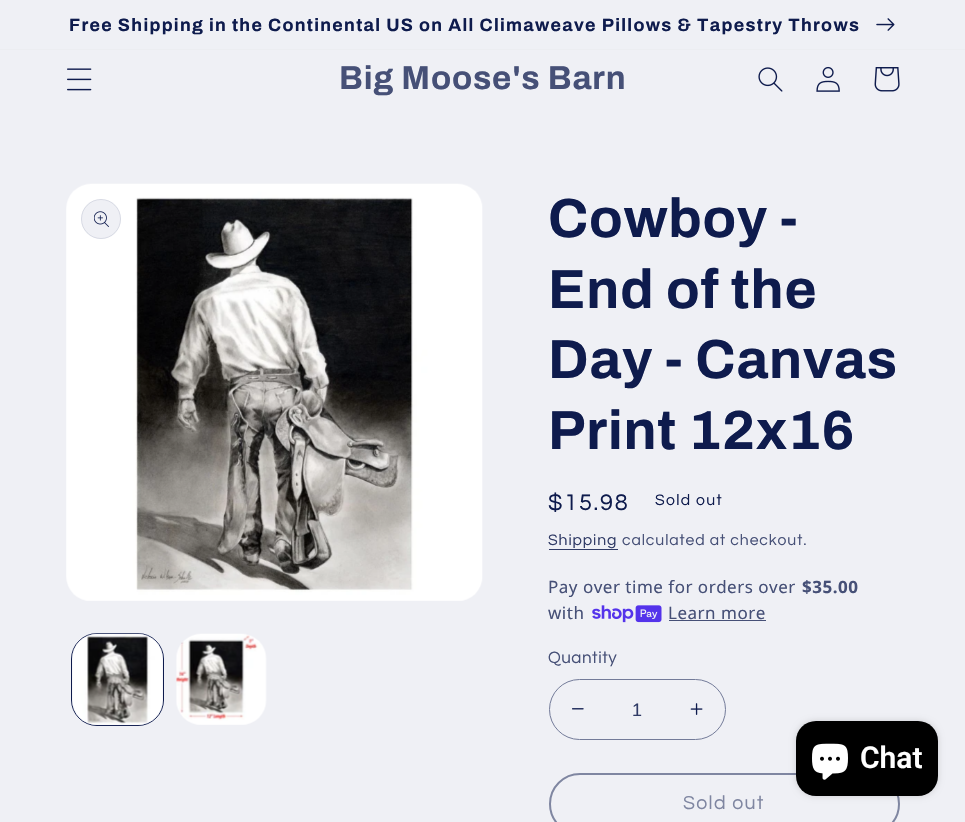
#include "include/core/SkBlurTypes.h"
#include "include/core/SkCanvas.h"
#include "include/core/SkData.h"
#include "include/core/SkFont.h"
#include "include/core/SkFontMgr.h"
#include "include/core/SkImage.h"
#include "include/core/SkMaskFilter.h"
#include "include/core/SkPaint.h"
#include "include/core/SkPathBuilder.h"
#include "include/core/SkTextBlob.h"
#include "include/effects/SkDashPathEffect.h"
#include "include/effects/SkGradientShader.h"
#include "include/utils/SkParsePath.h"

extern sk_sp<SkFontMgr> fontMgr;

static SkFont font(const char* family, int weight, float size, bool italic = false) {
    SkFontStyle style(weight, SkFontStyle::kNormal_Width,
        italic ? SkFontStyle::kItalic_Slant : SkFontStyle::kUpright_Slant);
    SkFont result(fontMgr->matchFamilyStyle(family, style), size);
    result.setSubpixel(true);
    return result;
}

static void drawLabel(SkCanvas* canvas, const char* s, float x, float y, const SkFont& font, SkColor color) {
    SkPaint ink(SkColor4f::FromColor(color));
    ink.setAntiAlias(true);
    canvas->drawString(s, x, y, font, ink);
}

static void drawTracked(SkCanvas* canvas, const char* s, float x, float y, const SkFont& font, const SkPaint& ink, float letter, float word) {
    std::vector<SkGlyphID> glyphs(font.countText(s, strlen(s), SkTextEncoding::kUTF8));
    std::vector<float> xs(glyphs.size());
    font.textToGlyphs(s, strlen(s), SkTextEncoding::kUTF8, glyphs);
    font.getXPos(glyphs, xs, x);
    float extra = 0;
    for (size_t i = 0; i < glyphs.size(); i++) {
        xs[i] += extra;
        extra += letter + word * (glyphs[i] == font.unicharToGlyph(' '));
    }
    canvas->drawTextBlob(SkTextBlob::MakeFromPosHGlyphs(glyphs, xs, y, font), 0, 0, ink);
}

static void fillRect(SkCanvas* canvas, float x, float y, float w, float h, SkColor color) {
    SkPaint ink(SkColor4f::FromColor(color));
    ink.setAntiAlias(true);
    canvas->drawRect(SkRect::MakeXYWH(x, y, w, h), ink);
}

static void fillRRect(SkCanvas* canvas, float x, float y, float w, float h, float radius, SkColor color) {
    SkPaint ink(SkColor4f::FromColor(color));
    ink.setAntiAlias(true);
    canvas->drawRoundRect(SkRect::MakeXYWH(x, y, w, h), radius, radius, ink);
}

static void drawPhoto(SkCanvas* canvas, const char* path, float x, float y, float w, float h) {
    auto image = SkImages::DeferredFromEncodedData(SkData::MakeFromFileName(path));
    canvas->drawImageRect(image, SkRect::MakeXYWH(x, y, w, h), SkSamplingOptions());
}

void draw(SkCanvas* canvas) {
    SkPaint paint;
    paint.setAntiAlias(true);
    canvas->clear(0xFFEFF0F5);
    fillRect(canvas, 0, 49, 965, 1, 0xFFECEDF1);
    SkFont font1 = font("Archivo", 700, 17.9f);
    paint.setColor(0xFF0E1B4D);
    drawTracked(canvas, "Free Shipping in the Continental US on All Climaweave Pillows & Tapestry Throws", 69, 31, font1, paint, 1.3f, 0);
    drawPhoto(canvas, "assets/img1.png", 876, 18, 19, 13);
    drawPhoto(canvas, "assets/img2.png", 67, 68, 25, 23);
    SkFont font2 = font("Archivo", 700, 33);
    paint.setColor(0xFF465077);
    drawTracked(canvas, "Big Moose's Barn", 339, 89, font2, paint, 0.8f, 0);
    drawPhoto(canvas, "assets/img3.png", 758, 67, 25, 25);
    drawPhoto(canvas, "assets/img4.png", 816, 66, 24, 26);
    drawPhoto(canvas, "assets/img5.png", 874, 67, 26, 25);
    drawPhoto(canvas, "assets/img6.png", 66, 183, 417, 418);
    paint.setColor(0xFFEFF0F5);
    canvas->drawCircle(101, 219, 20, paint);
    paint.setStroke(true);
    paint.setStrokeWidth(1);
    paint.setColor(0x1A0E1B4D);
    canvas->drawCircle(101, 219, 19.5f, paint);
    drawPhoto(canvas, "assets/img7.png", 94, 211, 15, 16);
    paint.setColor(0xFF0E1B4D);
    canvas->drawRoundRect(SkRect::MakeXYWH(71.5f, 633.5f, 92, 92), 25.5f, 25.5f, paint);
    drawPhoto(canvas, "assets/img8.png", 72, 633, 91, 93);
    drawPhoto(canvas, "assets/img9.png", 176, 633, 91, 92);
    SkFont font3 = font("Archivo", 700, 55);
    paint.setStroke(false);
    drawTracked(canvas, "Cowboy -", 548, 237, font3, paint, 0.8f, 0);
    drawTracked(canvas, "End of the", 548, 308, font3, paint, 0.8f, 0);
    drawTracked(canvas, "Day - Canvas", 548, 378, font3, paint, 0.8f, 0);
    drawTracked(canvas, "Print 12x16", 548, 449, font3, paint, 0.8f, 0);
    SkFont font4 = font("Questrial", 400, 23.5f);
    drawTracked(canvas, "$15.98", 548, 510, font4, paint, 1.75f, 0);
    SkFont font5 = font("Questrial", 400, 15.75f);
    drawTracked(canvas, "Sold out", 655, 505, font5, paint, 1.3f, 0);
    paint.setColor(0xFF303B66);
    drawTracked(canvas, "Shipping", 548, 545, font5, paint, 0.9f, 0);
    fillRect(canvas, 549, 549, 69, 1, 0xFF303B66);
    paint.setColor(0xFF465077);
    drawTracked(canvas, "calculated at checkout.", 622, 545, font5, paint, 0.9f, 0);
    SkFont font6 = font("Noto Sans", 400, 17);
    drawTracked(canvas, "Pay over time for orders over", 548, 593, font6, paint, 0.5f, 0);
    SkFont font7 = font("Noto Sans", 700, 17);
    drawTracked(canvas, "$35.00", 802, 593, font7, paint, 0.5f, 0);
    drawTracked(canvas, "with", 548, 619, font6, paint, 0.5f, 0);
    drawPhoto(canvas, "assets/img10.png", 592, 605, 70, 18);
    drawTracked(canvas, "Learn more", 668, 619, font6, paint, 0.5f, 0);
    fillRect(canvas, 669, 620, 97, 1, 0xFF465077);
    SkFont font8 = font("Questrial", 400, 17);
    drawTracked(canvas, "Quantity", 548, 663, font8, paint, 0.5f, 0);
    drawPhoto(canvas, "assets/img11.png", 572, 708, 12, 2);
    drawPhoto(canvas, "assets/img12.png", 690, 703, 13, 12);
    paint.setStroke(true);
    paint.setColor(0xFF737B99);
    canvas->drawRoundRect(SkRect::MakeXYWH(549.5f, 679.5f, 176, 60), 30, 30, paint);
    SkFont font9 = font("Liberation Sans", 400, 18);
    drawLabel(canvas, "1", 632, 716, font9, 0xFF303B66);
    paint.setStrokeWidth(2);
    paint.setColor(0xFF7F86A1);
    canvas->drawRoundRect(SkRect::MakeXYWH(550, 774, 349, 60), 30, 30, paint);
    SkFont font10 = font("Questrial", 400, 19.5f);
    paint.setStroke(false);
    drawTracked(canvas, "Sold out", 683, 809, font10, paint, 1.3f, 0);
    paint.setColor(0x26000000);
    paint.setMaskFilter(SkMaskFilter::MakeBlur(kNormal_SkBlurStyle, 3));
    canvas->drawRoundRect(SkRect::MakeXYWH(796, 721, 142, 75), 20, 20, paint);
    paint.setMaskFilter(nullptr);
    fillRRect(canvas, 796, 721, 142, 75, 20, 0xFF000000);
    drawPhoto(canvas, "assets/img13.png", 812, 743, 36, 37);
    SkFont font11 = font("Roboto", 600, 30);
    drawLabel(canvas, "Chat", 860, 768, font11, 0xFFFFFFFF);
}
